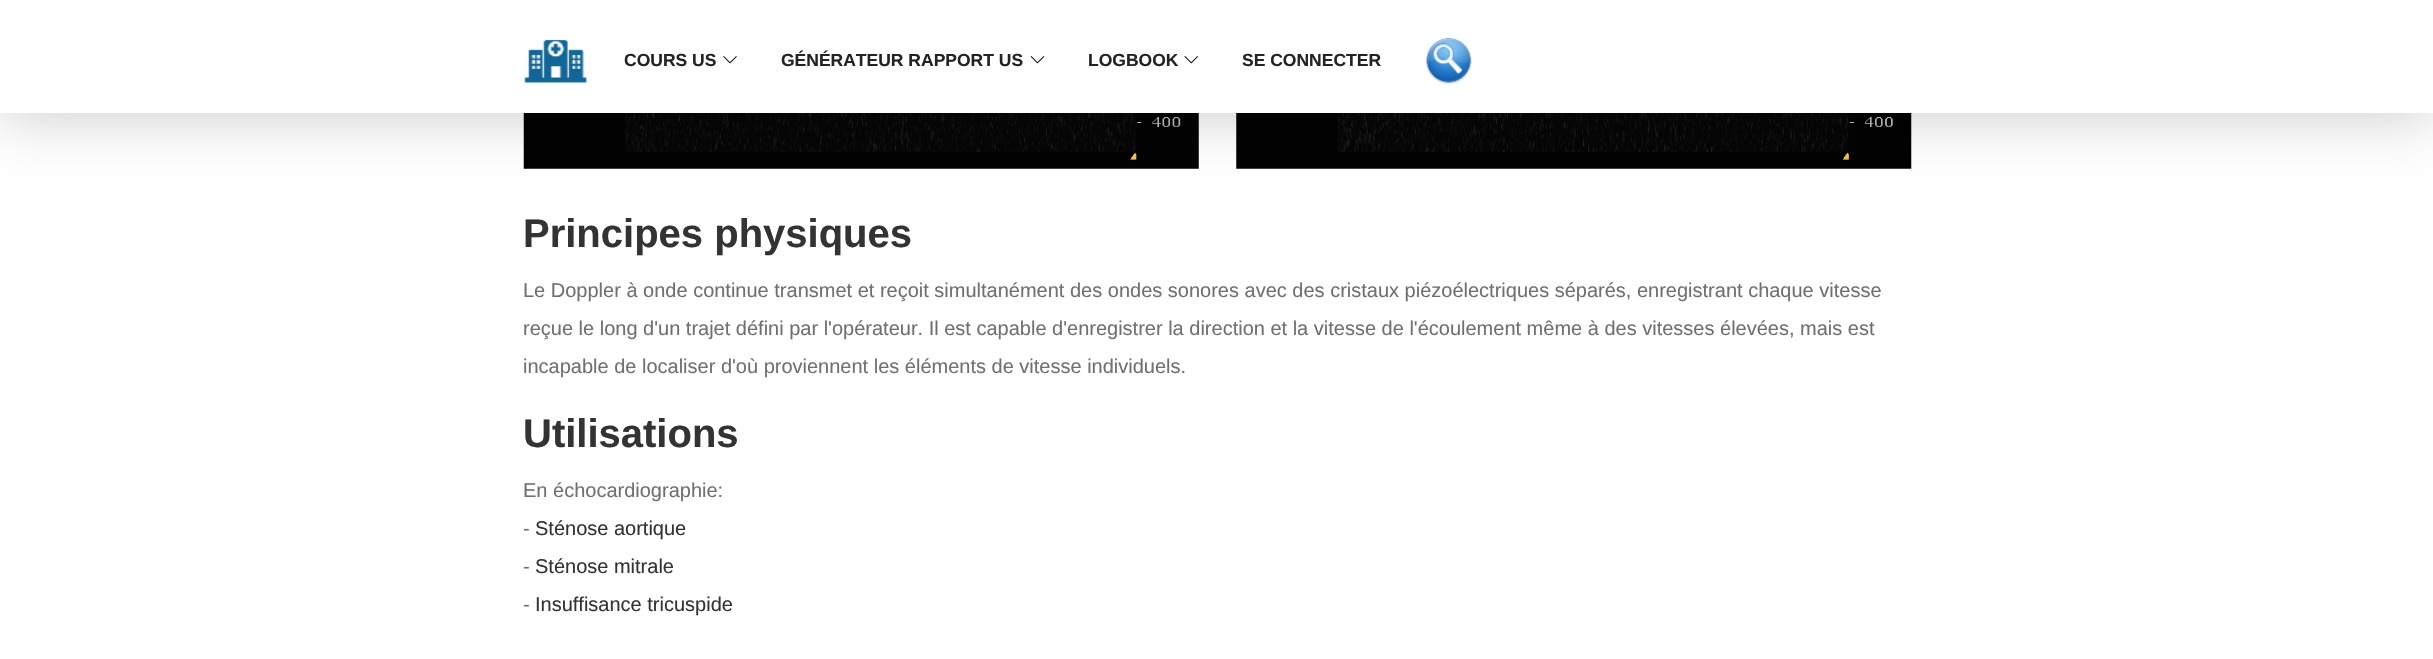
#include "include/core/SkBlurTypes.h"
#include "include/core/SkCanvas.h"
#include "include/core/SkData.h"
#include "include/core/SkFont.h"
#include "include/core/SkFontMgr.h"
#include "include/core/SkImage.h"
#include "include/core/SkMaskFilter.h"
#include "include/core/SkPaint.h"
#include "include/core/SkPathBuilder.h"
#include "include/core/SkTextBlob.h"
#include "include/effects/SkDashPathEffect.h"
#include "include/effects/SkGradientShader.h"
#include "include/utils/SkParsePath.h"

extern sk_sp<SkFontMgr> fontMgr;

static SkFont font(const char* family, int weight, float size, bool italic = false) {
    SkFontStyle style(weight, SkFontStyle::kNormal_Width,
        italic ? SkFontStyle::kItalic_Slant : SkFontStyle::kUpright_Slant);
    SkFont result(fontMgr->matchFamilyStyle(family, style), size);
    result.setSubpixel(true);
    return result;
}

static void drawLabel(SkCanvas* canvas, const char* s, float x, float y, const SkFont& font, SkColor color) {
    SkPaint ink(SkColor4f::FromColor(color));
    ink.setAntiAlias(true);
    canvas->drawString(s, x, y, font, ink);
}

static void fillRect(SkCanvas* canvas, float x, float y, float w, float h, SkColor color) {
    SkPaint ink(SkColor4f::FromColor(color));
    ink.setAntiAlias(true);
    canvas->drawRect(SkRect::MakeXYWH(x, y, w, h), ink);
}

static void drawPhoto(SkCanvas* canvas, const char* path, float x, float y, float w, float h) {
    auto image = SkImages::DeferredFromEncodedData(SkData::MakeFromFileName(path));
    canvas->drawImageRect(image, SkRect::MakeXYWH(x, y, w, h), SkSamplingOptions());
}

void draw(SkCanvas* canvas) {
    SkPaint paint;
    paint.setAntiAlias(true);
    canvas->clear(0xFFFFFFFF);
    drawPhoto(canvas, "assets/img6.png", 523, 113, 676, 56);
    drawPhoto(canvas, "assets/img7.png", 1236, 113, 676, 56);
    paint.setColor(0x33000000);
    paint.setMaskFilter(SkMaskFilter::MakeBlur(kNormal_SkBlurStyle, 31));
    canvas->drawRect(SkRect::MakeXYWH(0, 4, 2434, 112), paint);
    paint.setMaskFilter(nullptr);
    fillRect(canvas, 0, 0, 2433, 113, 0xFFFFFFFF);
    drawPhoto(canvas, "assets/img1.png", 524, 39, 63, 44);
    SkFont font1 = font("Liberation Sans", 700, 17.5f);
    drawLabel(canvas, "COURS US", 624, 66, font1, 0xFF232323);
    drawPhoto(canvas, "assets/img2.png", 723, 56, 14, 8);
    drawLabel(canvas, "GÉNÉRATEUR RAPPORT US", 781, 66, font1, 0xFF232323);
    drawPhoto(canvas, "assets/img3.png", 1030, 56, 15, 8);
    drawLabel(canvas, "LOGBOOK", 1088, 66, font1, 0xFF232323);
    drawPhoto(canvas, "assets/img4.png", 1184, 56, 14, 8);
    drawLabel(canvas, "SE CONNECTER", 1242, 66, font1, 0xFF232323);
    drawPhoto(canvas, "assets/img5.png", 1425, 37, 47, 48);
    SkFont font2 = font("Liberation Sans", 700, 40);
    drawLabel(canvas, "Principes physiques", 523, 247, font2, 0xFF333333);
    SkFont font3 = font("Liberation Sans", 400, 20);
    drawLabel(canvas, "Le Doppler à onde continue transmet et reçoit simultanément des ondes sonores avec des cristaux piézoélectriques séparés, enregistrant chaque vitesse", 523, 297, font3, 0xFF707070);
    drawLabel(canvas, "reçue le long d'un trajet défini par l'opérateur. Il est capable d'enregistrer la direction et la vitesse de l'écoulement même à des vitesses élevées, mais est", 523, 335, font3, 0xFF707070);
    drawLabel(canvas, "incapable de localiser d'où proviennent les éléments de vitesse individuels.", 523, 373, font3, 0xFF707070);
    drawLabel(canvas, "Utilisations", 523, 447, font2, 0xFF333333);
    drawLabel(canvas, "En échocardiographie:", 523, 497, font3, 0xFF707070);
    drawLabel(canvas, "-", 523, 535, font3, 0xFF707070);
    drawLabel(canvas, "Sténose aortique", 535, 535, font3, 0xFF333333);
    drawLabel(canvas, "-", 523, 573, font3, 0xFF707070);
    drawLabel(canvas, "Sténose mitrale", 535, 573, font3, 0xFF333333);
    drawLabel(canvas, "-", 523, 611, font3, 0xFF707070);
    drawLabel(canvas, "Insuffisance tricuspide", 535, 611, font3, 0xFF333333);
}
